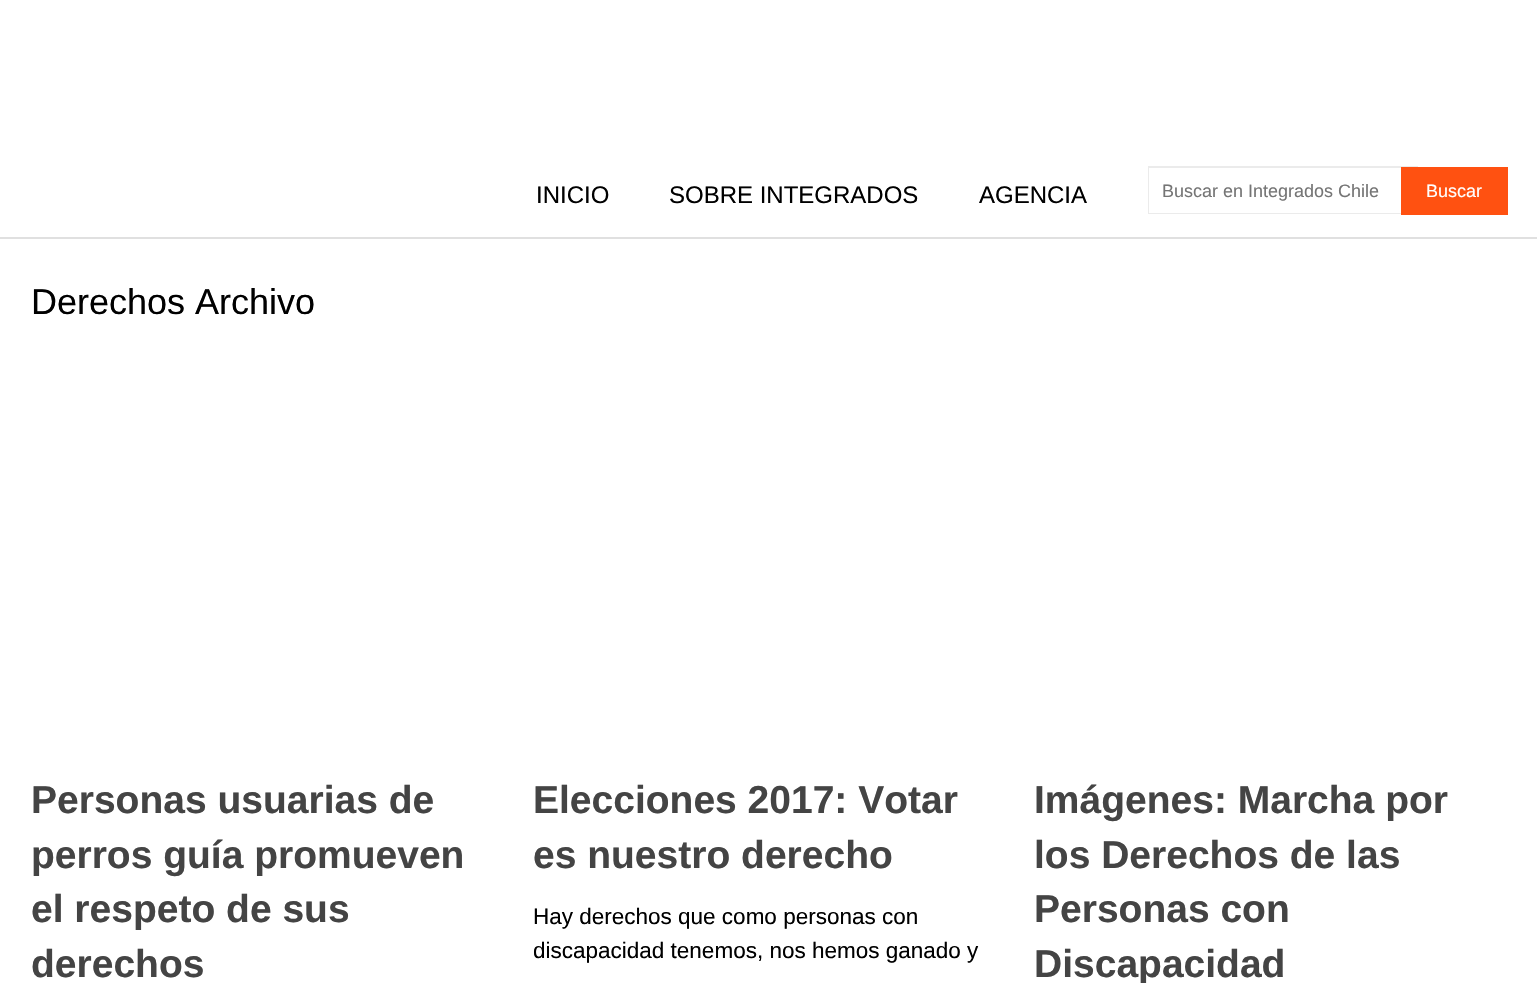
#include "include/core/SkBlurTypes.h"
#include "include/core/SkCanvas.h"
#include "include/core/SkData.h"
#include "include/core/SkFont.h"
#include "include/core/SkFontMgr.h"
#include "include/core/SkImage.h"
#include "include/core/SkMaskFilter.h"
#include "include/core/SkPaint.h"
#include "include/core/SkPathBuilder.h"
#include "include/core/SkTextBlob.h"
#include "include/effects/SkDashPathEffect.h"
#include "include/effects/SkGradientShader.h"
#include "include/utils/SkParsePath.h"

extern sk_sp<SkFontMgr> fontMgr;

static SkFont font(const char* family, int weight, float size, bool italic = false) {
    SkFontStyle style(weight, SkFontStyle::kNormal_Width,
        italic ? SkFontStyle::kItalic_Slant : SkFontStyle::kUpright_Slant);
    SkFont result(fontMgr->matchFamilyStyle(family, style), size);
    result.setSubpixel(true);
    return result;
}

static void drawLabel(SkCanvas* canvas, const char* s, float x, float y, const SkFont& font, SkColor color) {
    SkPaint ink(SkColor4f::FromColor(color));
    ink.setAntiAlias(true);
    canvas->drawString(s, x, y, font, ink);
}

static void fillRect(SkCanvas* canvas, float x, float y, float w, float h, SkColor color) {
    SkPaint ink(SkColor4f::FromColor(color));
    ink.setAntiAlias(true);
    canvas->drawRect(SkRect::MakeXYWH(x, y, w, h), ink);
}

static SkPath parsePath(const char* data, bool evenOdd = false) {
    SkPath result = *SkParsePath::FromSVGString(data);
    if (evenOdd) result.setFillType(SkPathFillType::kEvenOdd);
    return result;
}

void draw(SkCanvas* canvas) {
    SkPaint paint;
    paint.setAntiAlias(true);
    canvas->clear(0xFFFFFFFF);
    fillRect(canvas, 0, 237, 1537, 2, 0xFFE0E0E0);
    SkFont font1 = font("Liberation Sans", 400, 24);
    drawLabel(canvas, "INICIO", 536, 203, font1, 0xFF000000);
    drawLabel(canvas, "SOBRE INTEGRADOS", 669, 203, font1, 0xFF000000);
    drawLabel(canvas, "AGENCIA", 979, 203, font1, 0xFF000000);
    paint.setColor(0xFFEBEBEB);
    canvas->drawPath(parsePath("M1148 166H1418V168H1149Z"), paint);
    canvas->drawPath(parsePath("M1418 214H1148L1149 213H1418Z"), paint);
    paint.setColor(0x14000000);
    canvas->drawPath(parsePath("M1148 214V166L1149 168V213Z"), paint);
    SkFont font2 = font("Liberation Sans", 400, 18);
    drawLabel(canvas, "Buscar en Integrados Chile", 1162, 197, font2, 0xFF757575);
    fillRect(canvas, 1401, 167, 107, 48, 0xFFFF5111);
    drawLabel(canvas, "Buscar", 1426, 197, font2, 0xFFFFFFFF);
    SkFont font3 = font("Liberation Sans", 400, 36);
    drawLabel(canvas, "Derechos Archivo", 31, 314, font3, 0xFF000000);
    SkFont font4 = font("Liberation Sans", 700, 39);
    drawLabel(canvas, "Personas usuarias de", 31, 813, font4, 0xFF444444);
    drawLabel(canvas, "perros guía promueven", 31, 868, font4, 0xFF444444);
    drawLabel(canvas, "el respeto de sus", 31, 922, font4, 0xFF444444);
    drawLabel(canvas, "derechos", 31, 977, font4, 0xFF444444);
    drawLabel(canvas, "Elecciones 2017: Votar", 533, 813, font4, 0xFF444444);
    drawLabel(canvas, "es nuestro derecho", 533, 868, font4, 0xFF444444);
    SkFont font5 = font("Liberation Sans", 400, 22.5f);
    drawLabel(canvas, "Hay derechos que como personas con", 533, 924, font5, 0xFF000000);
    drawLabel(canvas, "discapacidad tenemos, nos hemos ganado y", 533, 958, font5, 0xFF000000);
    drawLabel(canvas, "Imágenes: Marcha por", 1034, 813, font4, 0xFF444444);
    drawLabel(canvas, "los Derechos de las", 1034, 868, font4, 0xFF444444);
    drawLabel(canvas, "Personas con", 1034, 922, font4, 0xFF444444);
    drawLabel(canvas, "Discapacidad", 1034, 977, font4, 0xFF444444);
}
